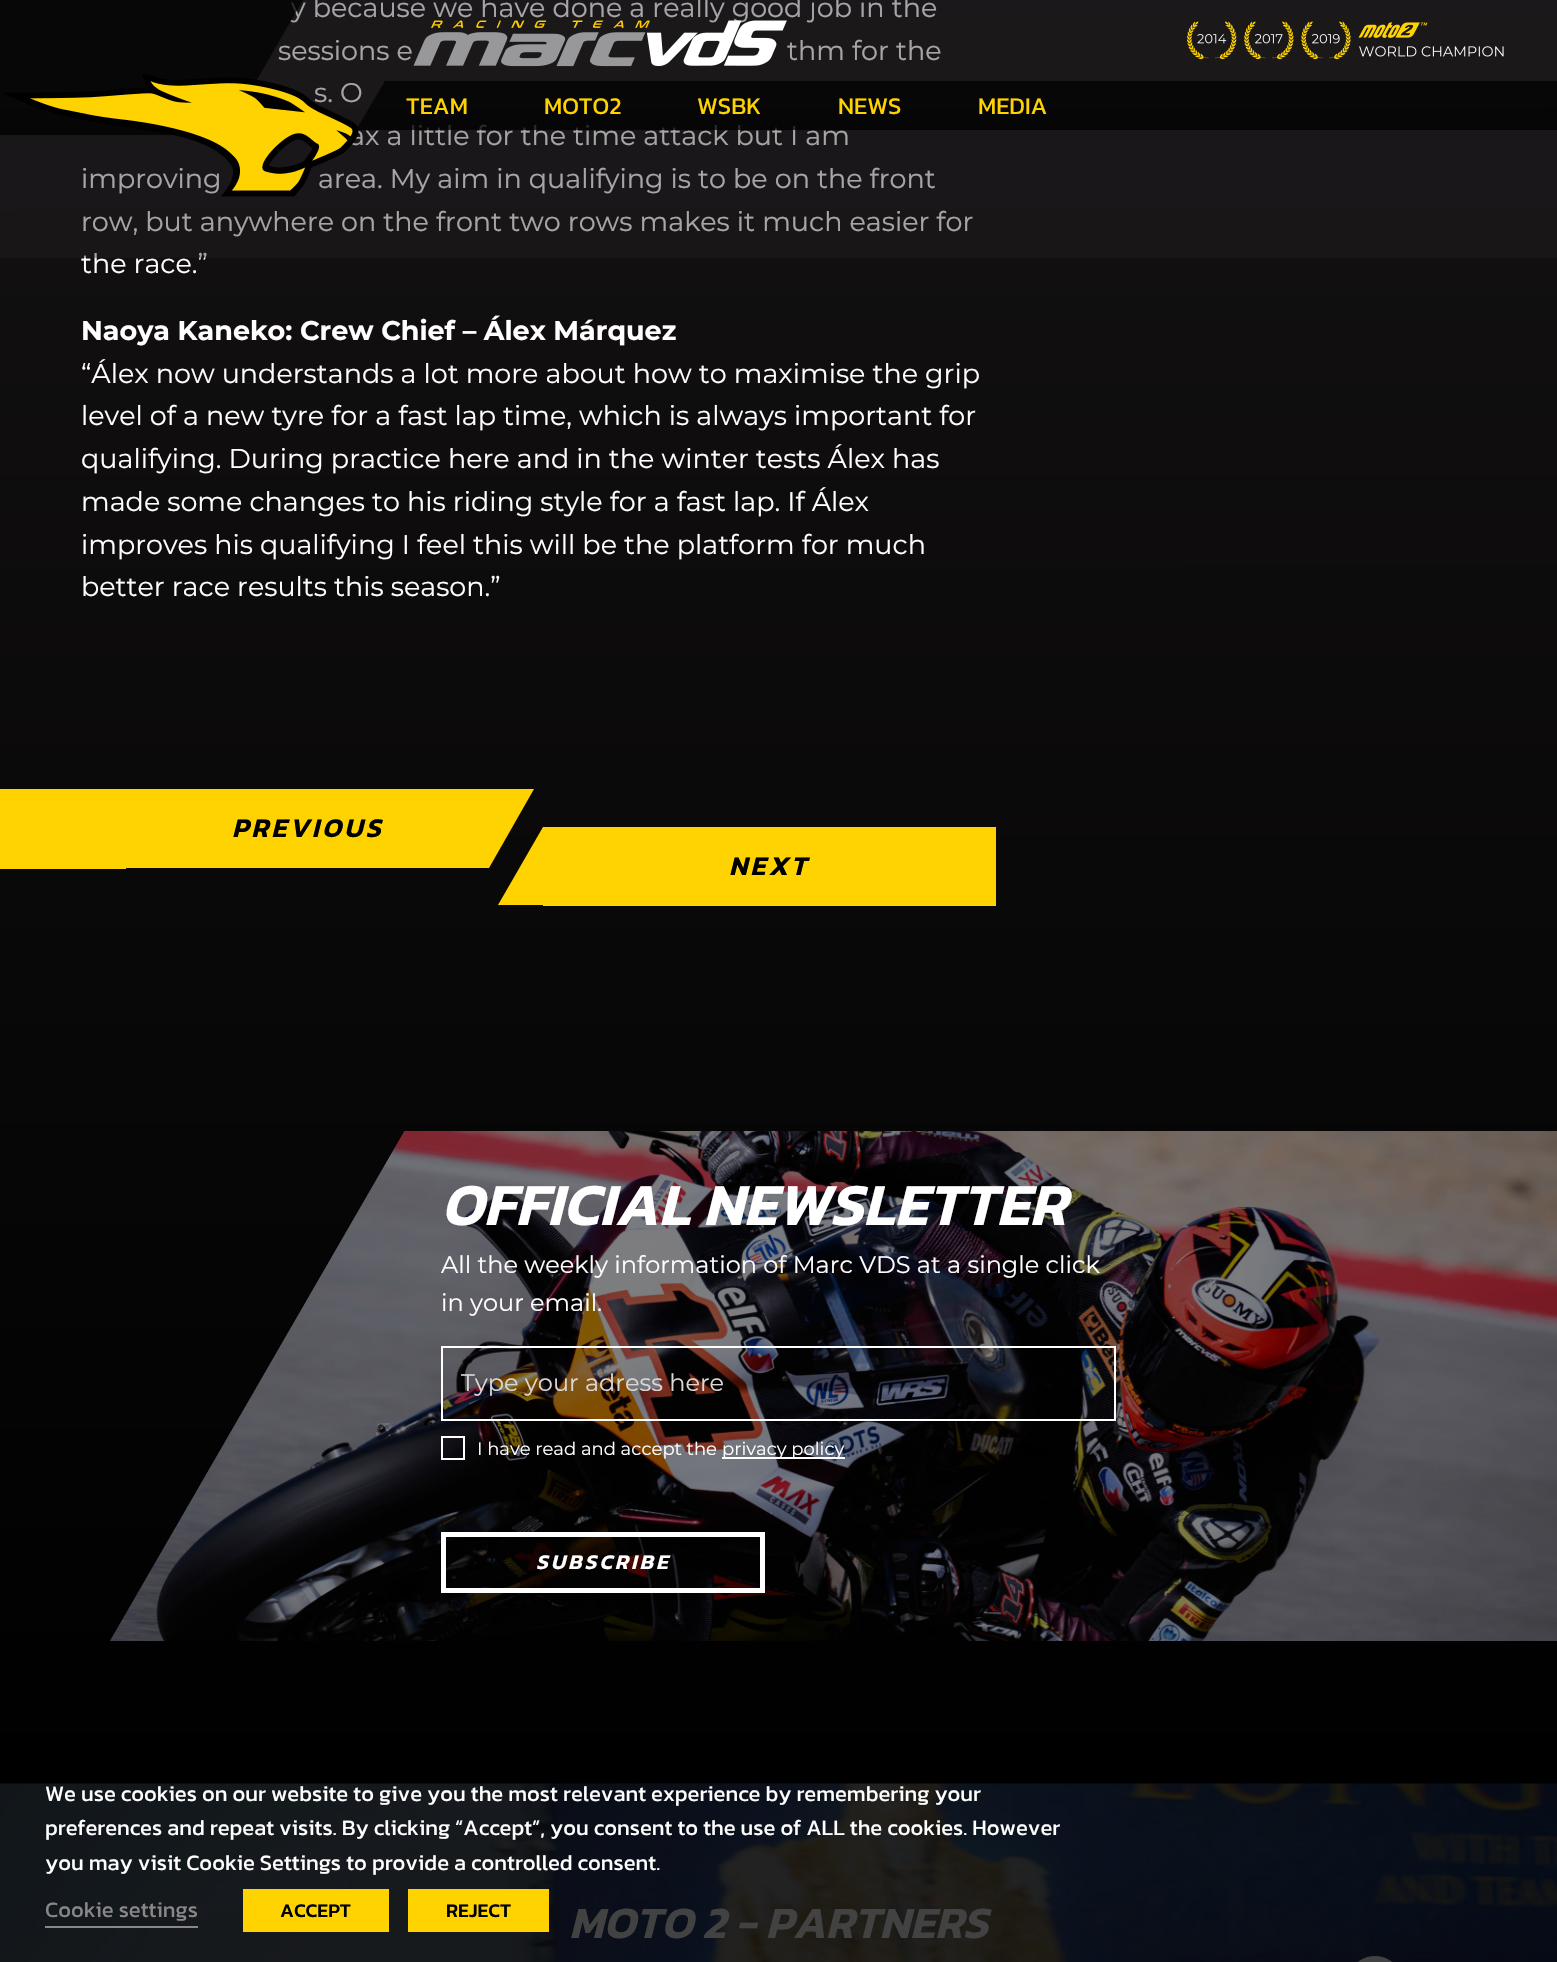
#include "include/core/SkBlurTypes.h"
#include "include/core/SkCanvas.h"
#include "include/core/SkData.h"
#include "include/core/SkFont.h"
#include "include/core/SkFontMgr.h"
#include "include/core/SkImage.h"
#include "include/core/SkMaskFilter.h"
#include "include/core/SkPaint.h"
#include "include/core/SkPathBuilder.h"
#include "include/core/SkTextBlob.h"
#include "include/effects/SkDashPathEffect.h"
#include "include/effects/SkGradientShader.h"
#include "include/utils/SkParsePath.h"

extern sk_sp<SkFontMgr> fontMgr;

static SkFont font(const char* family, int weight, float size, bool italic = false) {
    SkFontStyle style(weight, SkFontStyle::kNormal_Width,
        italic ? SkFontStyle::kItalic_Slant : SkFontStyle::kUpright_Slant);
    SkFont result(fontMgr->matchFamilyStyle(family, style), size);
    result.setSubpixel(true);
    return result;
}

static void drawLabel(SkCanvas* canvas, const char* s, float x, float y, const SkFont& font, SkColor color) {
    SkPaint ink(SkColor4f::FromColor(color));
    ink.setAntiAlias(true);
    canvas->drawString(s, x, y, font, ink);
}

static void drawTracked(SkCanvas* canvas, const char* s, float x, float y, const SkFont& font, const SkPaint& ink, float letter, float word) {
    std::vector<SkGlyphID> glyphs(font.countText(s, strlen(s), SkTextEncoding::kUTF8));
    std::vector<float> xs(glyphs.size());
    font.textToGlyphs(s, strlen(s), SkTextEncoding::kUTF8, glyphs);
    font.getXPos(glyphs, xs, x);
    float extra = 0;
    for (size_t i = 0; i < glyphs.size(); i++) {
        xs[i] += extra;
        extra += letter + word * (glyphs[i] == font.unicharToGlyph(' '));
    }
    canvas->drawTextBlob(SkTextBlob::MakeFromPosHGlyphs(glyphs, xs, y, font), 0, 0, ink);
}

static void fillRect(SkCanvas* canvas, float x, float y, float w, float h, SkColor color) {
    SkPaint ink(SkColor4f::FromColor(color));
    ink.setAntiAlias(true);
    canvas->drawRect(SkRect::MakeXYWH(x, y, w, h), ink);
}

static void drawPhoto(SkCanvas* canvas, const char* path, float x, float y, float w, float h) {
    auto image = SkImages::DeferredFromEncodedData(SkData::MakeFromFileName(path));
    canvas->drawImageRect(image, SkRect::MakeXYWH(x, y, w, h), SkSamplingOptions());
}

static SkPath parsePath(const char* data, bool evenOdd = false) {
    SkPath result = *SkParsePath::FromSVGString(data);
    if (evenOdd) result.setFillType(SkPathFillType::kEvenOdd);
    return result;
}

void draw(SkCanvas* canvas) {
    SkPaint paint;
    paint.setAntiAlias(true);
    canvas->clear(0xFFFFFFFF);
    {
        const SkColor colors[] = {0xFF242022, 0xFF000000};
        const float stops[] = {0, 1};
        const SkPoint ends[] = {{778, -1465}, {779, 1784}};
        paint.setShader(SkGradientShader::MakeLinear(ends, colors, stops, 2, SkTileMode::kClamp));
        paint.setAlpha(255);
    }
    canvas->drawRect(SkRect::MakeXYWH(0, 0, 1557, 1754), paint);
    {
        const SkColor colors[] = {0xFF090809, 0xFF000000};
        const float stops[] = {0, 1};
        const SkPoint ends[] = {{778, -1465}, {779, 1784}};
        paint.setShader(SkGradientShader::MakeLinear(ends, colors, stops, 2, SkTileMode::kClamp));
        paint.setAlpha(255);
    }
    canvas->drawRect(SkRect::MakeXYWH(0, 1754, 1557, 30), paint);
    SkFont font1 = font("Montserrat", 400, 27);
    drawLabel(canvas, "y because we have done a really good job in the", 291, 17, font1, 0xFFFFFFFF);
    drawLabel(canvas, "sessions e", 278, 60, font1, 0xFFFFFFFF);
    drawLabel(canvas, "thm for the", 787, 60, font1, 0xFFFFFFFF);
    drawLabel(canvas, "s. O", 314, 102, font1, 0xFFFFFFFF);
    drawLabel(canvas, "ax a little for the time attack but I am", 349, 145, font1, 0xFFFFFFFF);
    drawLabel(canvas, "improving", 81, 188, font1, 0xFFFFFFFF);
    drawLabel(canvas, "area. My aim in qualifying is to be on the front", 318, 188, font1, 0xFFFFFFFF);
    drawLabel(canvas, "row, but anywhere on the front two rows makes it much easier for", 81, 231, font1, 0xFFFFFFFF);
    drawLabel(canvas, "the race.”", 81, 273, font1, 0xFFFFFFFF);
    SkFont font2 = font("Montserrat", 700, 27);
    drawLabel(canvas, "Naoya Kaneko: Crew Chief – Álex Márquez", 81, 340, font2, 0xFFFFFFFF);
    drawLabel(canvas, "“Álex now understands a lot more about how to maximise the grip", 81, 383, font1, 0xFFFFFFFF);
    drawLabel(canvas, "level of a new tyre for a fast lap time, which is always important for", 81, 425, font1, 0xFFFFFFFF);
    drawLabel(canvas, "qualifying. During practice here and in the winter tests Álex has", 81, 468, font1, 0xFFFFFFFF);
    drawLabel(canvas, "made some changes to his riding style for a fast lap. If Álex", 81, 511, font1, 0xFFFFFFFF);
    drawLabel(canvas, "improves his qualifying I feel this will be the platform for much", 81, 554, font1, 0xFFFFFFFF);
    drawLabel(canvas, "better race results this season.”", 81, 596, font1, 0xFFFFFFFF);
    paint.setShader(nullptr);
    paint.setColor(0xFFFFD300);
    canvas->drawPath(parsePath("M81 789H534L489 868H36Z"), paint);
    fillRect(canvas, 0, 789, 126, 80, 0xFFFFD300);
    SkFont font3 = font("Kanit", 600, 27, true);
    paint.setColor(0xFF000000);
    drawTracked(canvas, "PREVIOUS", 232, 837, font3, paint, 3, 0);
    paint.setColor(0xFFFFD300);
    canvas->drawPath(parsePath("M543 827H996L951 905H498Z"), paint);
    fillRect(canvas, 543, 827, 453, 79, 0xFFFFD300);
    paint.setColor(0xFF000000);
    drawTracked(canvas, "NEXT", 729, 875, font3, paint, 3, 0);
    drawPhoto(canvas, "assets/img1.png", 110, 1131, 1447, 510);
    paint.setColor(0x80000000);
    canvas->drawPath(parsePath("M110 1639L403 1131H1557V1641H110Z"), paint);
    SkFont font4 = font("Kanit", 600, 60, true);
    drawLabel(canvas, "OFFICIAL NEWSLETTER", 441, 1225, font4, 0xFFFFFFFF);
    SkFont font5 = font("Montserrat", 400, 24);
    drawLabel(canvas, "All the weekly information of Marc VDS at a single click", 441, 1273, font5, 0xFFFFFFFF);
    drawLabel(canvas, "in your email.", 441, 1311, font5, 0xFFFFFFFF);
    paint.setStroke(true);
    paint.setStrokeWidth(2);
    paint.setColor(0xFFFFFFFF);
    canvas->drawRect(SkRect::MakeXYWH(442, 1347, 673, 73), paint);
    drawLabel(canvas, "Type your adress here", 461, 1391, font5, 0xFFDCD7D4);
    canvas->drawRect(SkRect::MakeXYWH(442, 1437, 22, 22), paint);
    SkFont font6 = font("Montserrat", 400, 18);
    drawLabel(canvas, "I have read and accept the", 477, 1455, font6, 0xFFFFFFFF);
    fillRect(canvas, 722, 1457, 123, 2, 0xFFFFFFFF);
    drawLabel(canvas, "privacy policy", 722, 1455, font6, 0xFFFFFFFF);
    paint.setStrokeWidth(5);
    canvas->drawRect(SkRect::MakeXYWH(443.5f, 1534.5f, 319, 56), paint);
    SkFont font7 = font("Kanit", 600, 21, true);
    paint.setStroke(false);
    drawTracked(canvas, "SUBSCRIBE", 536, 1569, font7, paint, 3, 0);
    fillRect(canvas, 0, 0, 1557, 258, 0x66242022);
    paint.setColor(0xBD000000);
    canvas->drawPath(parsePath("M-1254 0H303L225 135H-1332Z"), paint);
    canvas->drawPath(parsePath("M385 81H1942L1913 130H356Z"), paint);
    drawPhoto(canvas, "assets/img2.png", 3, 74, 356, 123);
    drawPhoto(canvas, "assets/img3.png", 413, 20, 374, 47);
    drawPhoto(canvas, "assets/img4.png", 1187, 21, 50, 39);
    drawPhoto(canvas, "assets/img5.png", 1244, 21, 50, 39);
    drawPhoto(canvas, "assets/img6.png", 1301, 21, 50, 39);
    drawPhoto(canvas, "assets/img7.png", 1358, 22, 146, 35);
    SkFont font8 = font("Kanit", 400, 24);
    drawLabel(canvas, "TEAM", 406, 114, font8, 0xFFFFD300);
    drawLabel(canvas, "MOTO2", 544, 114, font8, 0xFFFFD300);
    drawLabel(canvas, "WSBK", 697, 114, font8, 0xFFFFD300);
    drawLabel(canvas, "NEWS", 838, 114, font8, 0xFFFFD300);
    drawLabel(canvas, "MEDIA", 978, 114, font8, 0xFFFFD300);
    drawPhoto(canvas, "assets/img8.png", 0, 1783, 1557, 179);
    SkFont font9 = font("Kanit", 600, 45, true);
    drawLabel(canvas, "MOTO 2 - PARTNERS", 569, 1938, font9, 0xFF424242);
    drawPhoto(canvas, "assets/img9.png", 1358, 1956, 35, 6);
    SkFont font10 = font("Kanit", 400, 22);
    drawLabel(canvas, "We use cookies on our website to give you the most relevant experience by remembering your", 45, 1801, font10, 0xFFFFFFFF);
    drawLabel(canvas, "preferences and repeat visits. By clicking “Accept”, you consent to the use of ALL the cookies. However", 45, 1835, font10, 0xFFFFFFFF);
    drawLabel(canvas, "you may visit Cookie Settings to provide a controlled consent.", 45, 1870, font10, 0xFFFFFFFF);
    drawLabel(canvas, "Cookie settings", 45, 1917, font10, 0xFF898888);
    fillRect(canvas, 45, 1926, 153, 2, 0xFF898888);
    fillRect(canvas, 243, 1889, 146, 43, 0xFFFFD300);
    SkFont font11 = font("Kanit", 500, 19.5f);
    drawLabel(canvas, "ACCEPT", 280, 1917, font11, 0xFF000000);
    fillRect(canvas, 408, 1889, 141, 43, 0xFFFFD300);
    drawLabel(canvas, "REJECT", 446, 1917, font11, 0xFF000000);
}
